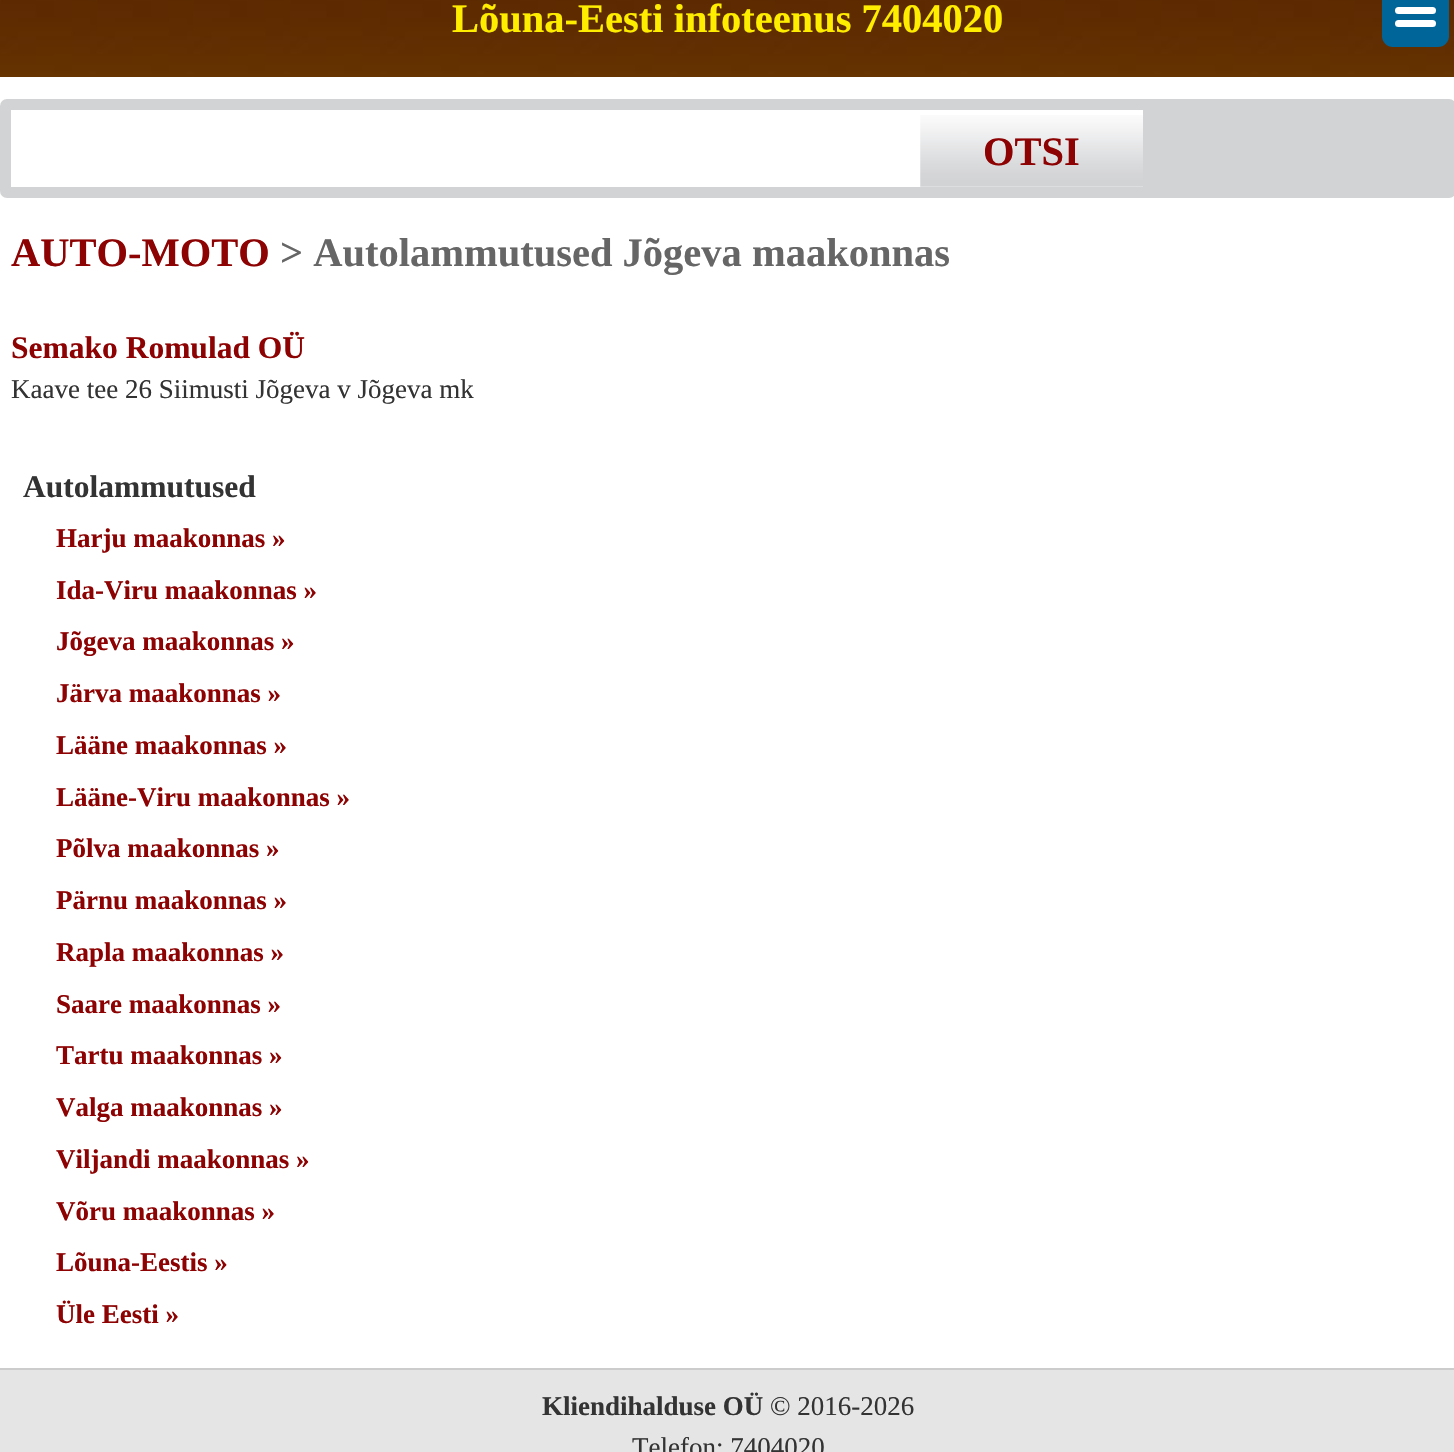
#include "include/core/SkBlurTypes.h"
#include "include/core/SkCanvas.h"
#include "include/core/SkData.h"
#include "include/core/SkFont.h"
#include "include/core/SkFontMgr.h"
#include "include/core/SkImage.h"
#include "include/core/SkMaskFilter.h"
#include "include/core/SkPaint.h"
#include "include/core/SkPathBuilder.h"
#include "include/core/SkTextBlob.h"
#include "include/effects/SkDashPathEffect.h"
#include "include/effects/SkGradientShader.h"
#include "include/utils/SkParsePath.h"

extern sk_sp<SkFontMgr> fontMgr;

static SkFont font(const char* family, int weight, float size, bool italic = false) {
    SkFontStyle style(weight, SkFontStyle::kNormal_Width,
        italic ? SkFontStyle::kItalic_Slant : SkFontStyle::kUpright_Slant);
    SkFont result(fontMgr->matchFamilyStyle(family, style), size);
    result.setSubpixel(true);
    return result;
}

static void drawLabel(SkCanvas* canvas, const char* s, float x, float y, const SkFont& font, SkColor color) {
    SkPaint ink(SkColor4f::FromColor(color));
    ink.setAntiAlias(true);
    canvas->drawString(s, x, y, font, ink);
}

static void fillRect(SkCanvas* canvas, float x, float y, float w, float h, SkColor color) {
    SkPaint ink(SkColor4f::FromColor(color));
    ink.setAntiAlias(true);
    canvas->drawRect(SkRect::MakeXYWH(x, y, w, h), ink);
}

static void fillRRect(SkCanvas* canvas, float x, float y, float w, float h, float radius, SkColor color) {
    SkPaint ink(SkColor4f::FromColor(color));
    ink.setAntiAlias(true);
    canvas->drawRoundRect(SkRect::MakeXYWH(x, y, w, h), radius, radius, ink);
}

static void drawPhoto(SkCanvas* canvas, const char* path, float x, float y, float w, float h) {
    auto image = SkImages::DeferredFromEncodedData(SkData::MakeFromFileName(path));
    canvas->drawImageRect(image, SkRect::MakeXYWH(x, y, w, h), SkSamplingOptions());
}

void draw(SkCanvas* canvas) {
    SkPaint paint;
    paint.setAntiAlias(true);
    canvas->clear(0xFFFFFFFF);
    drawPhoto(canvas, "assets/img1.png", 0, 0, 1454, 77);
    SkFont font1 = font("Liberation Serif", 700, 40.5f);
    drawLabel(canvas, "Lõuna-Eesti infoteenus 7404020", 452, 32, font1, 0xFFFFED00);
    fillRRect(canvas, 1382, -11, 67, 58, 11, 0xFF006599);
    fillRRect(canvas, 1395, 7, 41, 7, 3.5f, 0xFFFFFFFF);
    fillRRect(canvas, 1395, 20, 41, 7, 3.5f, 0xFFFFFFFF);
    fillRRect(canvas, 0, 99, 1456, 99, 7, 0xFFD2D3D5);
    fillRect(canvas, 11, 110, 1132, 77, 0xFFFFFFFF);
    drawPhoto(canvas, "assets/img2.png", 920, 115, 223, 72);
    drawLabel(canvas, "OTSI", 983, 165, font1, 0xFF8D0202);
    drawLabel(canvas, "AUTO-MOTO", 11, 266, font1, 0xFF8D0202);
    drawLabel(canvas, "> Autolammutused Jõgeva maakonnas", 280, 266, font1, 0xFF666666);
    SkFont font2 = font("Liberation Serif", 700, 31.5f);
    drawLabel(canvas, "Semako Romulad OÜ", 11, 358, font2, 0xFF8D0202);
    SkFont font3 = font("Liberation Serif", 400, 27);
    drawLabel(canvas, "Kaave tee 26 Siimusti Jõgeva v Jõgeva mk", 11, 398, font3, 0xFF333333);
    drawLabel(canvas, "Autolammutused", 23, 497, font2, 0xFF333333);
    SkFont font4 = font("Liberation Serif", 700, 27);
    drawLabel(canvas, "Harju maakonnas »", 56, 547, font4, 0xFF8D0202);
    drawLabel(canvas, "Ida-Viru maakonnas »", 56, 599, font4, 0xFF8D0202);
    drawLabel(canvas, "Jõgeva maakonnas »", 56, 650, font4, 0xFF8D0202);
    drawLabel(canvas, "Järva maakonnas »", 56, 702, font4, 0xFF8D0202);
    drawLabel(canvas, "Lääne maakonnas »", 56, 754, font4, 0xFF8D0202);
    drawLabel(canvas, "Lääne-Viru maakonnas »", 56, 806, font4, 0xFF8D0202);
    drawLabel(canvas, "Põlva maakonnas »", 56, 857, font4, 0xFF8D0202);
    drawLabel(canvas, "Pärnu maakonnas »", 56, 909, font4, 0xFF8D0202);
    drawLabel(canvas, "Rapla maakonnas »", 56, 961, font4, 0xFF8D0202);
    drawLabel(canvas, "Saare maakonnas »", 56, 1013, font4, 0xFF8D0202);
    drawLabel(canvas, "Tartu maakonnas »", 56, 1064, font4, 0xFF8D0202);
    drawLabel(canvas, "Valga maakonnas »", 56, 1116, font4, 0xFF8D0202);
    drawLabel(canvas, "Viljandi maakonnas »", 56, 1168, font4, 0xFF8D0202);
    drawLabel(canvas, "Võru maakonnas »", 56, 1220, font4, 0xFF8D0202);
    drawLabel(canvas, "Lõuna-Eestis »", 56, 1271, font4, 0xFF8D0202);
    drawLabel(canvas, "Üle Eesti »", 56, 1323, font4, 0xFF8D0202);
    fillRect(canvas, 0, 1370, 1454, 82, 0xFFE5E5E5);
    fillRect(canvas, 0, 1368, 1454, 2, 0xFFCCCCCC);
    drawLabel(canvas, "Kliendihalduse OÜ", 542, 1415, font4, 0xFF333333);
    drawLabel(canvas, "© 2016-2026", 770, 1415, font3, 0xFF333333);
    drawLabel(canvas, "Telefon: 7404020", 632, 1456, font3, 0xFF333333);
}
